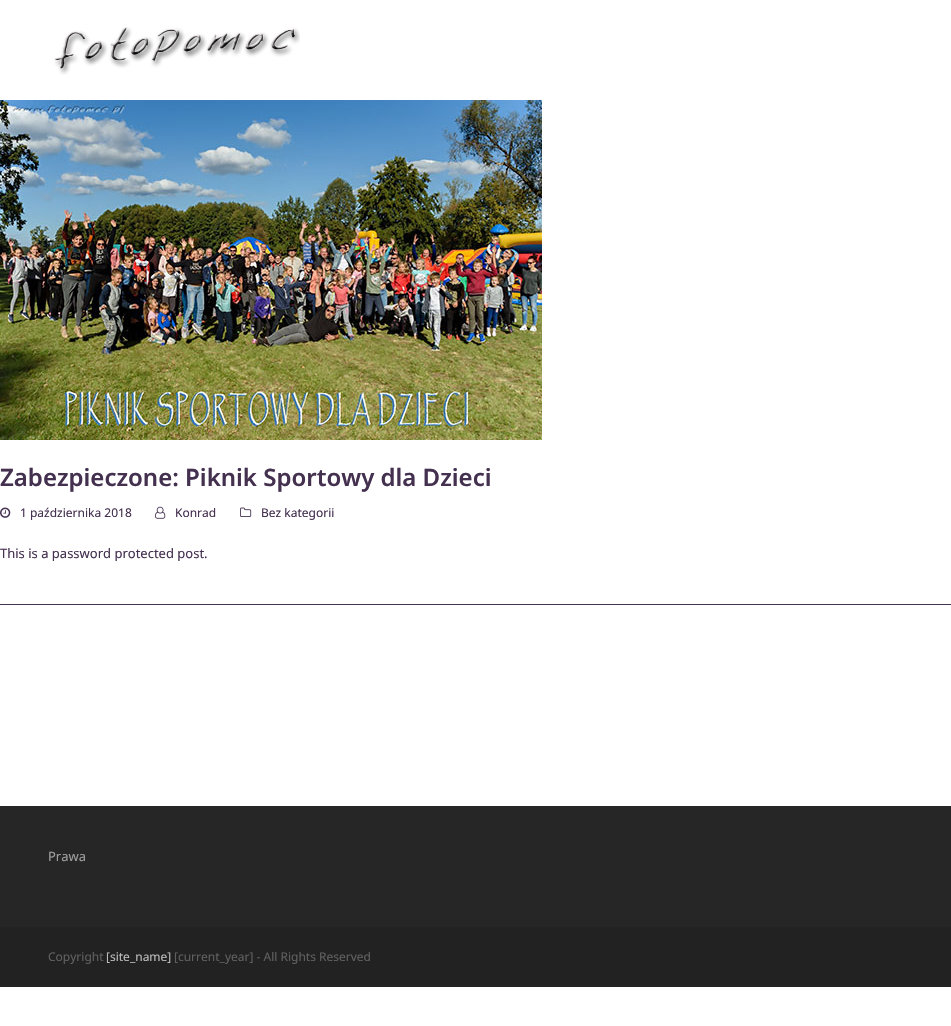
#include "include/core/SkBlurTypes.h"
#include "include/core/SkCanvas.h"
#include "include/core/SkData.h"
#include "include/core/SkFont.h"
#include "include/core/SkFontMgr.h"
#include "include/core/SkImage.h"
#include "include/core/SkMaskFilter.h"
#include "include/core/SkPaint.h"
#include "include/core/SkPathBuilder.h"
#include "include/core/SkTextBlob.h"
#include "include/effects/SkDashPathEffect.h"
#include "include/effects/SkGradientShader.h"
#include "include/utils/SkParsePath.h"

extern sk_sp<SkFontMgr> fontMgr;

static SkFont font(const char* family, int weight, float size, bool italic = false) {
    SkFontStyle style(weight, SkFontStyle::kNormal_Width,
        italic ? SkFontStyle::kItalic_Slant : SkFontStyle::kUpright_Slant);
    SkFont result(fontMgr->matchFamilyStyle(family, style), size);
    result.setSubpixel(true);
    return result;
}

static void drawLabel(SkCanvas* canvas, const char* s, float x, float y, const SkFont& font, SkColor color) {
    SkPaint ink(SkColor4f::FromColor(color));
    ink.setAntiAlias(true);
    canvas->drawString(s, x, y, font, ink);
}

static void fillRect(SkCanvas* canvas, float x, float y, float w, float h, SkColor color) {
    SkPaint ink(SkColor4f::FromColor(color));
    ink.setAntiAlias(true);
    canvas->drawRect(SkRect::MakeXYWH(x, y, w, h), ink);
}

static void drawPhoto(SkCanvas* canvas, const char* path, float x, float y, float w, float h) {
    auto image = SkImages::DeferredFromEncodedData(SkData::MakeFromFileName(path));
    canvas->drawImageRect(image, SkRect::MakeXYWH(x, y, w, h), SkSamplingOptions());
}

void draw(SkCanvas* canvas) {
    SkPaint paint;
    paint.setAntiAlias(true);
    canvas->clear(0xFFFFFFFF);
    drawPhoto(canvas, "assets/img1.png", 54, 27, 246, 48);
    drawPhoto(canvas, "assets/img2.png", 0, 100, 542, 340);
    SkFont font1 = font("Noto Sans", 600, 24);
    drawLabel(canvas, "Zabezpieczone: Piknik Sportowy dla Dzieci", 0, 486, font1, 0xFF44304F);
    drawPhoto(canvas, "assets/img3.png", 0, 507, 11, 11);
    SkFont font2 = font("Noto Sans", 400, 12);
    drawLabel(canvas, "1 października 2018", 20, 517, font2, 0xFF44304F);
    drawPhoto(canvas, "assets/img4.png", 155, 506, 11, 13);
    drawLabel(canvas, "Konrad", 175, 517, font2, 0xFF44304F);
    drawPhoto(canvas, "assets/img5.png", 240, 507, 12, 10);
    drawLabel(canvas, "Bez kategorii", 261, 517, font2, 0xFF44304F);
    SkFont font3 = font("Noto Sans", 400, 13);
    drawLabel(canvas, "This is a password protected post.", 0, 558, font3, 0xFF44304F);
    fillRect(canvas, 0, 604, 951, 1, 0xFF44304F);
    fillRect(canvas, 0, 806, 951, 121, 0xFF262626);
    drawLabel(canvas, "Prawa", 48, 861, font3, 0xFF9E9E9E);
    fillRect(canvas, 0, 927, 951, 60, 0xFF222222);
    drawLabel(canvas, "Copyright", 48, 961, font2, 0xFF606060);
    drawLabel(canvas, "[site_name]", 106, 961, font2, 0xFFBDBDBD);
    drawLabel(canvas, "[current_year] - All Rights Reserved", 174, 961, font2, 0xFF606060);
}
